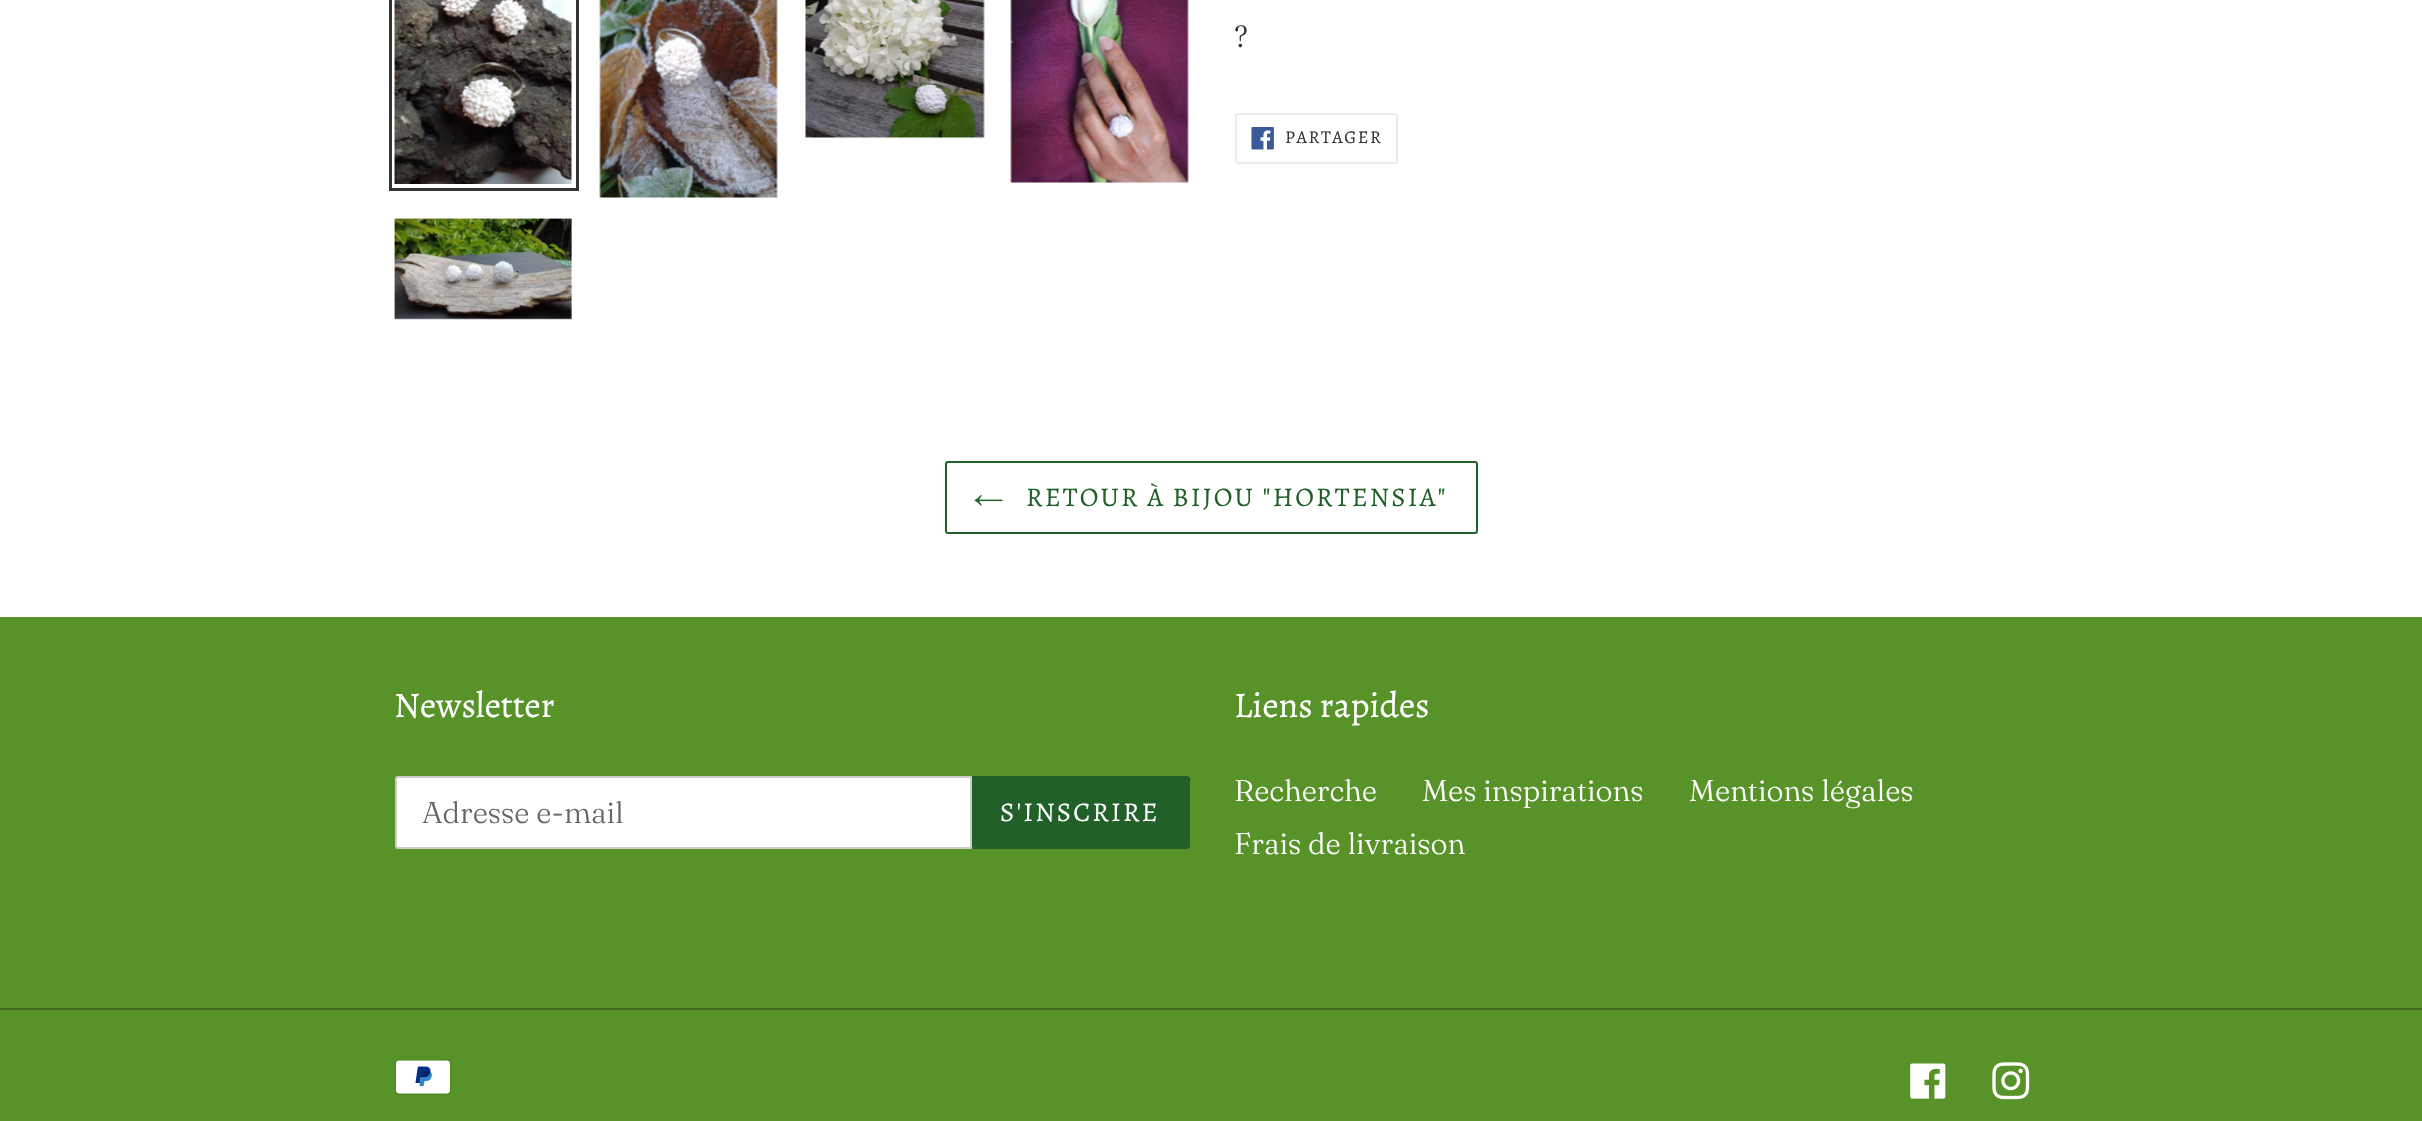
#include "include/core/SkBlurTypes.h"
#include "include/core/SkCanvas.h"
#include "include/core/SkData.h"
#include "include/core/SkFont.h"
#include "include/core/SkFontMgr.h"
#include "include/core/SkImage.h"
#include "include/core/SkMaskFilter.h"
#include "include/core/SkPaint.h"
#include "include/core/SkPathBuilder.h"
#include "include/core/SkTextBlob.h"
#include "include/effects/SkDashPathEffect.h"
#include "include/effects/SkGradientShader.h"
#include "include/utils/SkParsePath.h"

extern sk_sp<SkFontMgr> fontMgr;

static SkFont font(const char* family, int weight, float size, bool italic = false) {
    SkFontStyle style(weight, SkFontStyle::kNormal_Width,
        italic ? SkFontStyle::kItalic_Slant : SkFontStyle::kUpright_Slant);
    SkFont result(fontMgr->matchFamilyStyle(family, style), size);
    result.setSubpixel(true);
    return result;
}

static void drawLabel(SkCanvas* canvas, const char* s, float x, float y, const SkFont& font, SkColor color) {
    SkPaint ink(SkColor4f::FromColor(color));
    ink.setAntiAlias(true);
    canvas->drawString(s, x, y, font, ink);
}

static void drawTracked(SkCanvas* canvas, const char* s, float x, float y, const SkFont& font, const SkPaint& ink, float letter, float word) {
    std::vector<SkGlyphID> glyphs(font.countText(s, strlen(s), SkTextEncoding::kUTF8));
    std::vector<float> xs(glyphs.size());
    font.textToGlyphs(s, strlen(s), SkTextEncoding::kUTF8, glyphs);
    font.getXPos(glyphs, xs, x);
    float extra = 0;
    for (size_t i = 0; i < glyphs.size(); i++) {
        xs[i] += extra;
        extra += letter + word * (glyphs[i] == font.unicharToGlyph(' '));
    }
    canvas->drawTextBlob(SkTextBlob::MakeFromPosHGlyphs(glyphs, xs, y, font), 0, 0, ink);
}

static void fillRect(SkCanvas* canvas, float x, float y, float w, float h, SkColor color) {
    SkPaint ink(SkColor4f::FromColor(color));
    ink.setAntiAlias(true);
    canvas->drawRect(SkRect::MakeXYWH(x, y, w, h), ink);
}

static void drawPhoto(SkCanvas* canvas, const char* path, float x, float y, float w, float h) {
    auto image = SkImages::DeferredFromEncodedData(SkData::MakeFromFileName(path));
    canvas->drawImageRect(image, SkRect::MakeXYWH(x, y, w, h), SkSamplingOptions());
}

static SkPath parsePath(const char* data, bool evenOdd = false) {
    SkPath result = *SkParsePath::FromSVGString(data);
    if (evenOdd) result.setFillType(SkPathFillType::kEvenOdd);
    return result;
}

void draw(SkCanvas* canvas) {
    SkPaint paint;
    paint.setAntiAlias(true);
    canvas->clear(0xFFFFFFFF);
    paint.setStroke(true);
    paint.setStrokeWidth(3);
    paint.setColor(0xFF333232);
    canvas->drawRect(SkRect::MakeXYWH(390.5f, -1.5f, 187, 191), paint);
    drawPhoto(canvas, "assets/img1.png", 394, 0, 178, 184);
    drawPhoto(canvas, "assets/img2.png", 599, 0, 179, 198);
    drawPhoto(canvas, "assets/img3.png", 805, 0, 180, 138);
    drawPhoto(canvas, "assets/img4.png", 1010, 0, 179, 183);
    drawPhoto(canvas, "assets/img5.png", 394, 218, 178, 102);
    SkFont font1 = font("Fraunces", 300, 30);
    drawLabel(canvas, "?", 1234, 47, font1, 0xFF333232);
    paint.setStrokeWidth(2);
    paint.setColor(0xFFEBEBEB);
    canvas->drawRoundRect(SkRect::MakeXYWH(1236, 114, 161, 49), 2, 2, paint);
    drawPhoto(canvas, "assets/img6.png", 1251, 127, 23, 23);
    SkFont font2 = font("Alegreya", 400, 18);
    paint.setStroke(false);
    paint.setColor(0xFF333232);
    drawTracked(canvas, "PARTAGER", 1285, 143, font2, paint, 1.5f, 0);
    paint.setStroke(true);
    paint.setColor(0xFF216028);
    canvas->drawRoundRect(SkRect::MakeXYWH(946, 462, 531, 71), 2, 2, paint);
    drawPhoto(canvas, "assets/img7.png", 974, 495, 29, 11);
    SkFont font3 = font("Alegreya", 400, 27);
    paint.setStroke(false);
    drawTracked(canvas, "RETOUR À BIJOU \"HORTENSIA\"", 1026, 506, font3, paint, 2.15f, 0);
    fillRect(canvas, 0, 617, 2422, 504, 0xFF579329);
    SkFont font4 = font("Alegreya", 400, 36);
    drawLabel(canvas, "Newsletter", 394, 717, font4, 0xFFFFFFFF);
    paint.setColor(0xFFFFFFFF);
    canvas->drawPath(parsePath("M398 777H971V848H398C397 848 396 847 396 846V779C396 778 397 777 398 777Z"), paint);
    paint.setStroke(true);
    paint.setColor(0xFFCCCCCC);
    canvas->drawPath(parsePath("M398 777H971V848H398C397 848 396 847 396 846V779C396 778 397 777 398 777Z"), paint);
    drawLabel(canvas, "Adresse e-mail", 422, 823, font1, 0xFF666666);
    paint.setStroke(false);
    paint.setColor(0xFF216028);
    canvas->drawPath(parsePath("M972 776H1187C1188.5 776 1190 777.5 1190 779V846C1190 847.5 1188.5 849 1187 849H972Z"), paint);
    paint.setColor(0xFFFFFFFF);
    drawTracked(canvas, "S'INSCRIRE", 1000, 821, font3, paint, 2.15f, 0);
    drawLabel(canvas, "Liens rapides", 1234, 717, font4, 0xFFFFFFFF);
    drawLabel(canvas, "Recherche", 1234, 801, font1, 0xFFFFFFFF);
    drawLabel(canvas, "Mes inspirations", 1422, 801, font1, 0xFFFFFFFF);
    drawLabel(canvas, "Mentions légales", 1689, 801, font1, 0xFFFFFFFF);
    drawLabel(canvas, "Frais de livraison", 1234, 854, font1, 0xFFFFFFFF);
    fillRect(canvas, 0, 1008, 2422, 2, 0xFF3F6B1E);
    drawPhoto(canvas, "assets/img8.png", 395, 1059, 57, 36);
    drawPhoto(canvas, "assets/img9.png", 1910, 1063, 36, 36);
    drawPhoto(canvas, "assets/img10.png", 1992, 1062, 38, 38);
}
